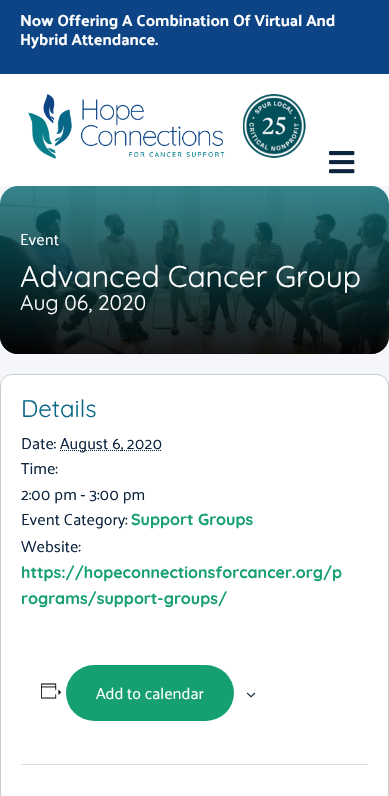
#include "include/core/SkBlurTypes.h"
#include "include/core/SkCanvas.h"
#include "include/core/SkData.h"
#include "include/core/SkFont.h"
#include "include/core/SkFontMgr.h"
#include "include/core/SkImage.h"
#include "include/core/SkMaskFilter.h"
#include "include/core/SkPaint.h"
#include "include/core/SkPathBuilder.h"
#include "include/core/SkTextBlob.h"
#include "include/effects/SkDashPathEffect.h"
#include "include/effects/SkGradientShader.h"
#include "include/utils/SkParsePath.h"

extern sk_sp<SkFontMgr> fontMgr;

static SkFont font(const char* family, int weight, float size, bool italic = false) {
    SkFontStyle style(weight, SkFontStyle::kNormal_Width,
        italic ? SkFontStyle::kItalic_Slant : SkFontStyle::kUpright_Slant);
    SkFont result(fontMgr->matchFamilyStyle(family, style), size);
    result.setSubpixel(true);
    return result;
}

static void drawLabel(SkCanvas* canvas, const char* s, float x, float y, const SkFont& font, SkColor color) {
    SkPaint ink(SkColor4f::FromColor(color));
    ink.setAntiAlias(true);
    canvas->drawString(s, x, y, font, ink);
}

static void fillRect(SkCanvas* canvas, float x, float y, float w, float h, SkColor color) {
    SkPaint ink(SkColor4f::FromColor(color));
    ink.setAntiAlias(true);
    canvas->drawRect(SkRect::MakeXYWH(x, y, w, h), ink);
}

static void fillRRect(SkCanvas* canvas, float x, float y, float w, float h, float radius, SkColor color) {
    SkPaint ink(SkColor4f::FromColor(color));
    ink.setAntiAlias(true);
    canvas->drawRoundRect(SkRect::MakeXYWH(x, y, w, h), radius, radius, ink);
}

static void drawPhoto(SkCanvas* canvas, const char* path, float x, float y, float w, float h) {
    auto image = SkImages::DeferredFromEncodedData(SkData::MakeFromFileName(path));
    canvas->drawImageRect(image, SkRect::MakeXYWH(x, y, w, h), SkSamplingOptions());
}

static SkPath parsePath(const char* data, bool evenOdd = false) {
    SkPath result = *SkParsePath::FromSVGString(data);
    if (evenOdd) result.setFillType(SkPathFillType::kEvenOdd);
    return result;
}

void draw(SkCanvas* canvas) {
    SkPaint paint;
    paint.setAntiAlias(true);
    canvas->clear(0xFFF4F6FA);
    fillRect(canvas, 0, 0, 389, 74, 0xFF0C4485);
    SkFont font1 = font("Palanquin", 700, 16);
    drawLabel(canvas, "Now Offering A Combination Of Virtual And", 20, 26, font1, 0xFFFFFFFF);
    drawLabel(canvas, "Hybrid Attendance.", 20, 45, font1, 0xFFFFFFFF);
    fillRect(canvas, 0, 74, 389, 112, 0xFFFFFFFF);
    drawPhoto(canvas, "assets/img1.png", 28, 94, 278, 65);
    drawPhoto(canvas, "assets/img2.png", 329, 151, 26, 23);
    drawPhoto(canvas, "assets/img3.png", 0, 186, 389, 168);
    {
        const SkColor colors[] = {0xE8020000, 0xCC036770};
        const float stops[] = {0, 1};
        const SkPoint ends[] = {{195, 354}, {195, 186}};
        paint.setShader(SkGradientShader::MakeLinear(ends, colors, stops, 2, SkTileMode::kClamp));
        paint.setAlpha(255);
    }
    canvas->drawRoundRect(SkRect::MakeXYWH(0, 186, 389, 168), 18, 18, paint);
    SkFont font2 = font("Palanquin", 400, 16);
    drawLabel(canvas, "Event", 20, 245, font2, 0xFFFFFFFF);
    SkFont font3 = font("Quicksand", 400, 30);
    drawLabel(canvas, "Advanced Cancer Group", 20, 287, font3, 0xFFFFFFFF);
    SkFont font4 = font("Quicksand", 400, 21);
    drawLabel(canvas, "Aug 06, 2020", 20, 310, font4, 0xFFFFFFFF);
    fillRRect(canvas, 0, 374, 389, 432, 12, 0xFFFFFFFF);
    paint.setStroke(true);
    paint.setStrokeWidth(1);
    paint.setShader(nullptr);
    paint.setColor(0x3B13293D);
    canvas->drawRoundRect(SkRect::MakeXYWH(0.5f, 374.5f, 388, 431), 11.5f, 11.5f, paint);
    SkFont font5 = font("Quicksand", 400, 24);
    drawLabel(canvas, "Details", 21, 417, font5, 0xFF086788);
    drawLabel(canvas, "Date:", 21, 449, font2, 0xFF0D243E);
    paint.setColor(0xFF0D243E);
    paint.setPathEffect(SkDashPathEffect::Make({{1, 1}}, 0));
    canvas->drawPath(parsePath("M60 450.5H162"), paint);
    paint.setPathEffect(nullptr);
    drawLabel(canvas, "August 6, 2020", 60, 449, font2, 0xFF0D243E);
    drawLabel(canvas, "Time:", 21, 474, font2, 0xFF0D243E);
    drawLabel(canvas, "2:00 pm - 3:00 pm", 21, 500, font2, 0xFF0D243E);
    drawLabel(canvas, "Event Category:", 21, 525, font2, 0xFF0D243E);
    SkFont font6 = font("Quicksand", 700, 16);
    drawLabel(canvas, "Support Groups", 131, 525, font6, 0xFF16A06F);
    drawLabel(canvas, "Website:", 21, 552, font2, 0xFF0D243E);
    drawLabel(canvas, "https://hopeconnectionsforcancer.org/p", 21, 578, font6, 0xFF16A06F);
    drawLabel(canvas, "rograms/support-groups/", 21, 604, font6, 0xFF16A06F);
    drawPhoto(canvas, "assets/img4.png", 41, 683, 21, 16);
    fillRRect(canvas, 66, 665, 168, 56, 28, 0xFF16A06F);
    drawLabel(canvas, "Add to calendar", 96, 699, font2, 0xFFFFFFFF);
    drawPhoto(canvas, "assets/img5.png", 246, 692, 10, 6);
    fillRect(canvas, 21, 764, 347, 1, 0xFFDDDDDD);
}
